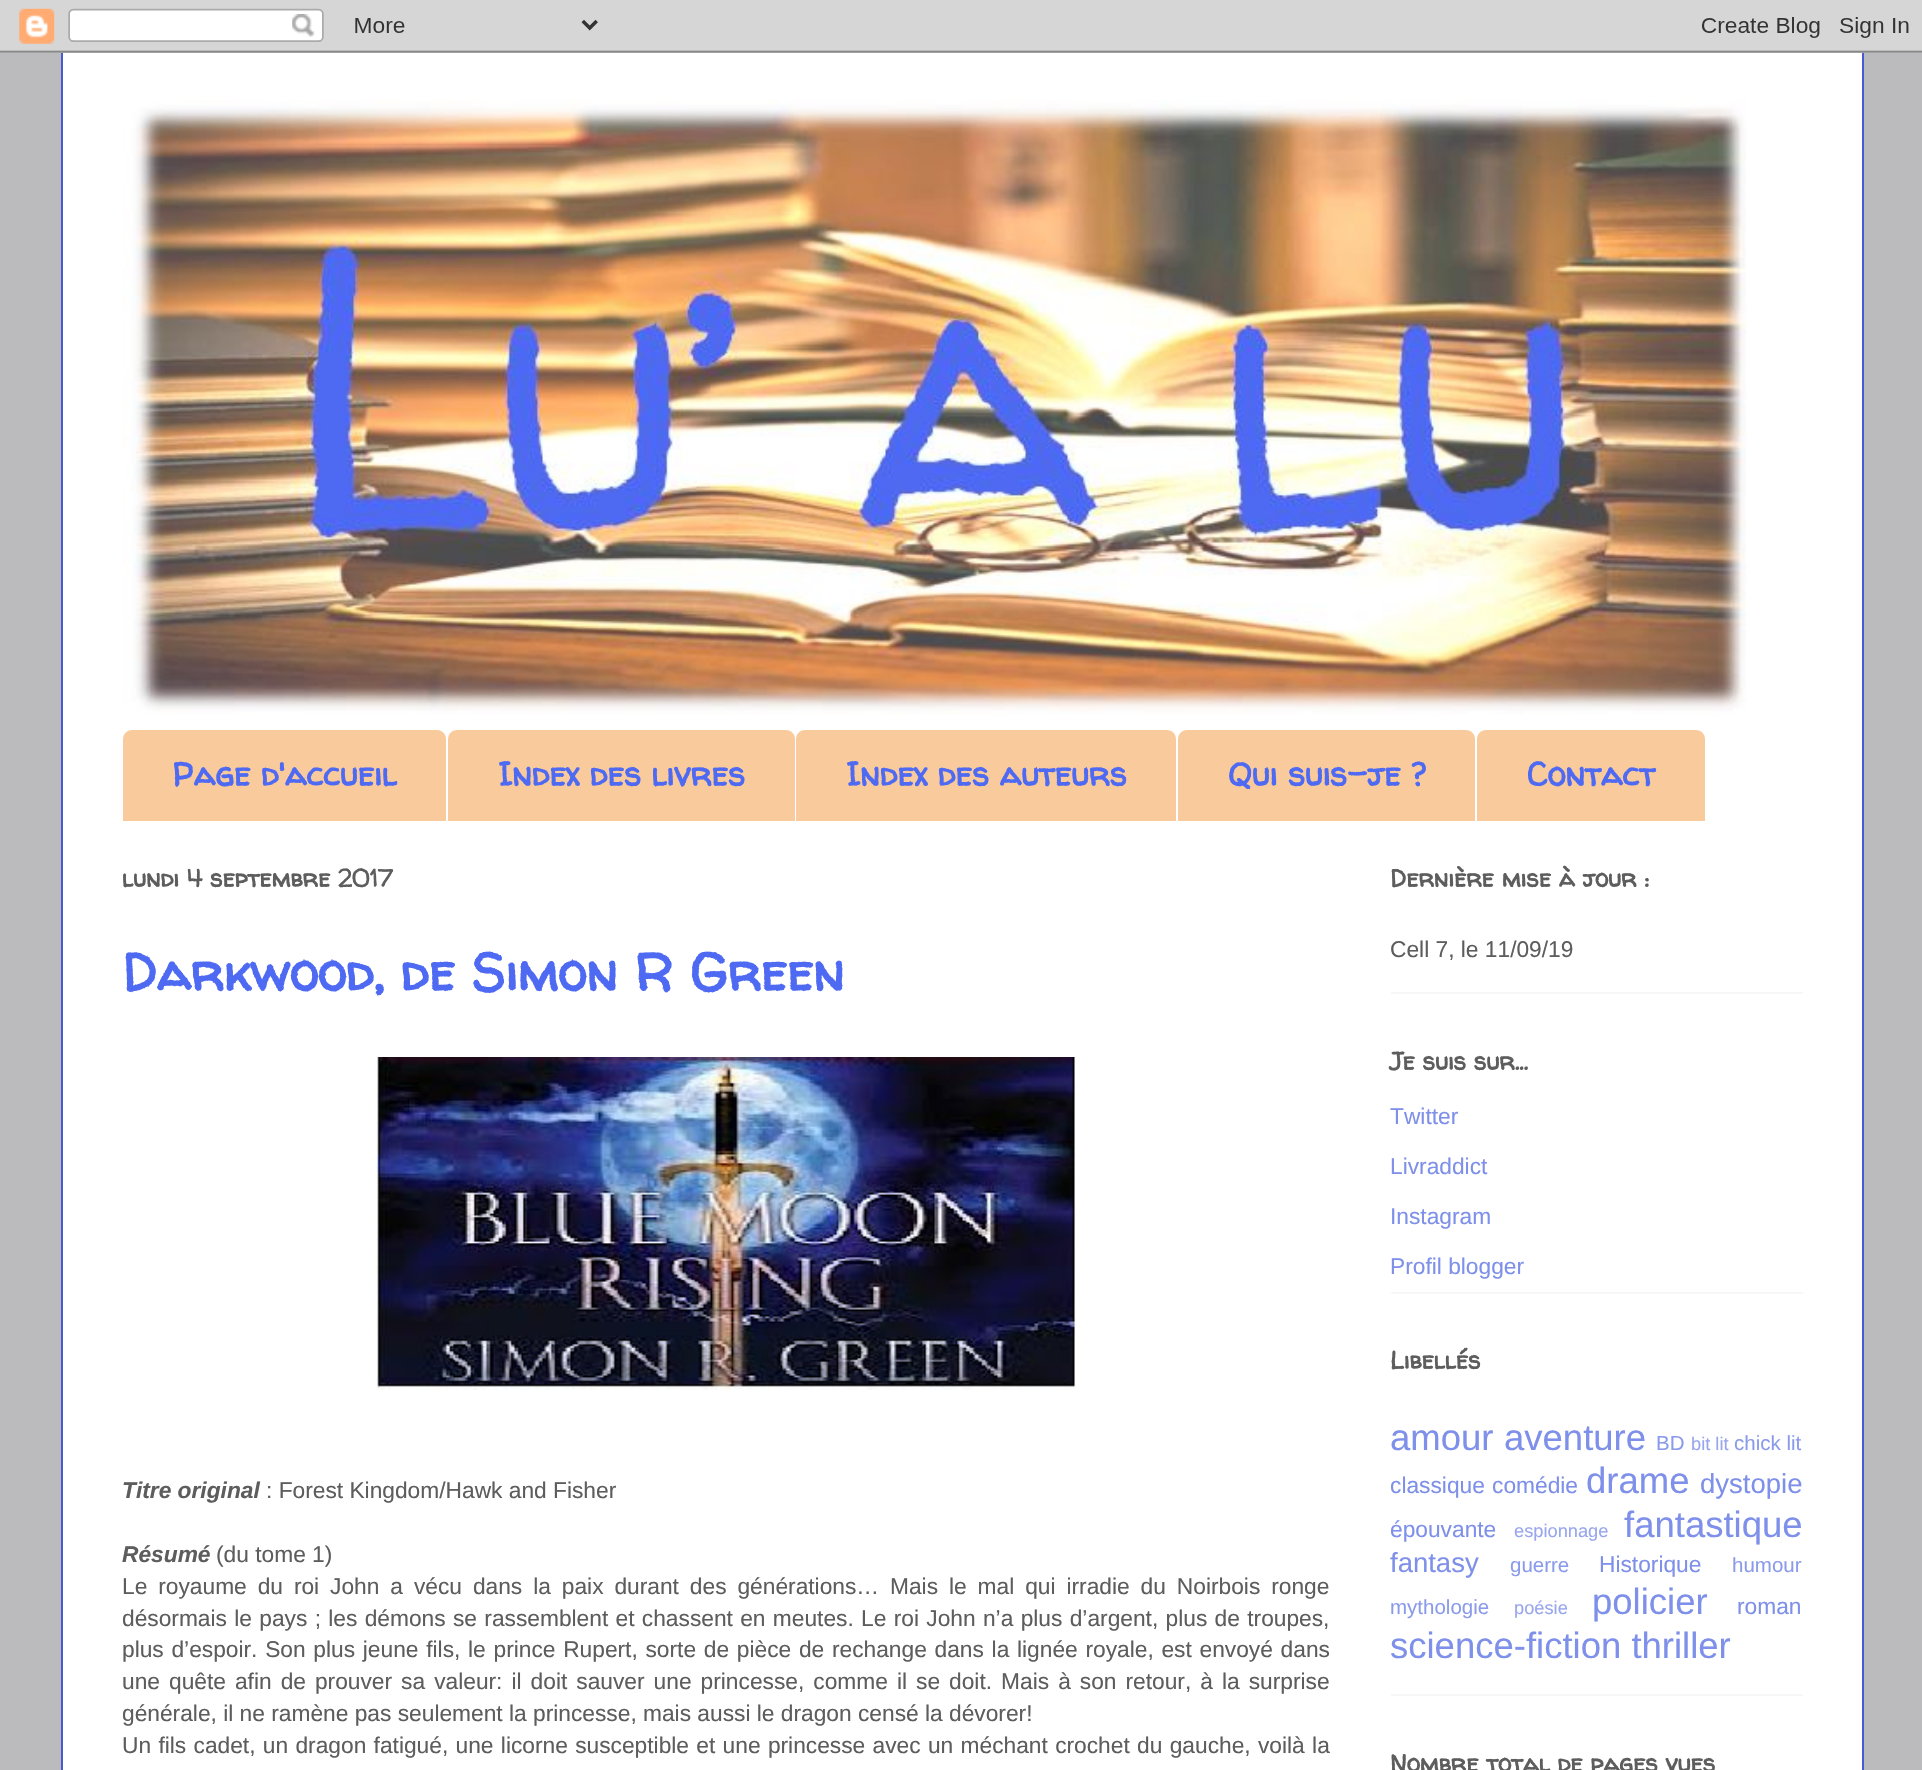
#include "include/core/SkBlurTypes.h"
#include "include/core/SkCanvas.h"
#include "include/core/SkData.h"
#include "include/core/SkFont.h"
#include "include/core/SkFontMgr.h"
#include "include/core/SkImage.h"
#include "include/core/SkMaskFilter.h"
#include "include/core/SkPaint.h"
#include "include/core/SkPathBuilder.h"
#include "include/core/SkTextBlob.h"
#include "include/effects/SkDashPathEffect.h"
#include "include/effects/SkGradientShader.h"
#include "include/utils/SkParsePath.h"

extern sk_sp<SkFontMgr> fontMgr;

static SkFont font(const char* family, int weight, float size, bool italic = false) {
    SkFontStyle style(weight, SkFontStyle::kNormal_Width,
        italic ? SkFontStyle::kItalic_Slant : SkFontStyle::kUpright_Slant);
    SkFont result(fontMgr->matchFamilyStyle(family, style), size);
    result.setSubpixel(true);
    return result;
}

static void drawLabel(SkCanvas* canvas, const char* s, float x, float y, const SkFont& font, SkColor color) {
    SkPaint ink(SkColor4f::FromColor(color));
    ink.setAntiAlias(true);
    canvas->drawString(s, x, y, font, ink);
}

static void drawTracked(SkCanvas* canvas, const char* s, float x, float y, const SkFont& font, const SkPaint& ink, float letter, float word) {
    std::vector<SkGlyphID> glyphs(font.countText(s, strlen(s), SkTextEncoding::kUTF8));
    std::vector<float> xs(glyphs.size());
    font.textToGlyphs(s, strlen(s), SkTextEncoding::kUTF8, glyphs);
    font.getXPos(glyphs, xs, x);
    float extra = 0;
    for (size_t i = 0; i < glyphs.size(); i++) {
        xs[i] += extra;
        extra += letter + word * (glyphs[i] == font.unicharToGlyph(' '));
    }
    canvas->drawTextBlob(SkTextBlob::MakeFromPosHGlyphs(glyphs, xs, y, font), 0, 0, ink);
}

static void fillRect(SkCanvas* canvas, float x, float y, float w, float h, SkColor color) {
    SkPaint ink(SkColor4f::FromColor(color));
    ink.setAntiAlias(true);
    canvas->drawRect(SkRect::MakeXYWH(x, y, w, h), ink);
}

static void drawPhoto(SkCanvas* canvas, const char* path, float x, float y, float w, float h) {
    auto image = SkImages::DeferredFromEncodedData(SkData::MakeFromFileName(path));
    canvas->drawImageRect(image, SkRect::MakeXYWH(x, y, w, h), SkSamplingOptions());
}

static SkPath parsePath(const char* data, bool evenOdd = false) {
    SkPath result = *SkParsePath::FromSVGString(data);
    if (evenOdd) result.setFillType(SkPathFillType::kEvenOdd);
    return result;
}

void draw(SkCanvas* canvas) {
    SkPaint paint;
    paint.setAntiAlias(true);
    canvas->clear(0xFFBBBBBD);
    drawPhoto(canvas, "assets/img1.png", 0, 0, 1922, 53);
    fillRect(canvas, 63, 53, 1799, 1717, 0xFFFFFFFF);
    fillRect(canvas, 1862, 53, 2, 1717, 0xFF455BD6);
    fillRect(canvas, 61, 53, 2, 1717, 0xFF455BD6);
    drawPhoto(canvas, "assets/img2.png", 123, 100, 1624, 615);
    paint.setColor(0xFFF9CB9C);
    canvas->drawPath(parsePath("M132 730H437C442 730 446 734 446 739V821H123V739C123 734 127 730 132 730Z"), paint);
    SkFont font1 = font("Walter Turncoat", 700, 33.25f);
    drawLabel(canvas, "Page d'accueil", 172, 786, font1, 0xFF4E69F2);
    canvas->drawPath(parsePath("M457 730H786C791 730 795 734 795 739V821H448V739C448 734 452 730 457 730Z"), paint);
    drawLabel(canvas, "Index des livres", 498, 786, font1, 0xFF4E69F2);
    canvas->drawPath(parsePath("M805 730H1167C1172 730 1176 734 1176 739V821H796V739C796 734 800 730 805 730Z"), paint);
    drawLabel(canvas, "Index des auteurs", 846, 786, font1, 0xFF4E69F2);
    canvas->drawPath(parsePath("M1187 730H1466C1471 730 1475 734 1475 739V821H1178V739C1178 734 1182 730 1187 730Z"), paint);
    drawLabel(canvas, "Qui suis-je ?", 1228, 786, font1, 0xFF4E69F2);
    canvas->drawPath(parsePath("M1486 730H1696C1701 730 1705 734 1705 739V821H1477V739C1477 734 1481 730 1486 730Z"), paint);
    drawLabel(canvas, "Contact", 1527, 786, font1, 0xFF4E69F2);
    SkFont font2 = font("Walter Turncoat", 700, 24.5f);
    drawLabel(canvas, "lundi 4 septembre 2017", 122, 887, font2, 0xFF5D5D5D);
    SkFont font3 = font("Walter Turncoat", 700, 52.5f);
    drawLabel(canvas, "Darkwood, de Simon R Green", 122, 991, font3, 0xFF4E69F2);
    drawPhoto(canvas, "assets/img3.png", 376, 1057, 700, 333);
    SkFont font4 = font("Liberation Sans", 700, 22.75f, true);
    drawLabel(canvas, "Titre original", 122, 1498, font4, 0xFF5D5D5D);
    SkFont font5 = font("Liberation Sans", 400, 22.75f);
    drawLabel(canvas, ": Forest Kingdom/Hawk and Fisher", 266, 1498, font5, 0xFF5D5D5D);
    drawLabel(canvas, "Résumé", 122, 1562, font4, 0xFF5D5D5D);
    drawLabel(canvas, "(du tome 1)", 216, 1562, font5, 0xFF5D5D5D);
    paint.setColor(0xFF5D5D5D);
    drawTracked(canvas, "Le royaume du roi John a vécu dans la paix durant des générations… Mais le mal qui irradie du Noirbois ronge", 122, 1594, font5, paint, 0, 4.6f);
    drawTracked(canvas, "désormais le pays ; les démons se rassemblent et chassent en meutes. Le roi John n’a plus d’argent, plus de troupes,", 122, 1626, font5, paint, 0, 1);
    drawTracked(canvas, "plus d’espoir. Son plus jeune fils, le prince Rupert, sorte de pièce de rechange dans la lignée royale, est envoyé dans", 122, 1657, font5, paint, 0, 1.4f);
    drawTracked(canvas, "une quête afin de prouver sa valeur: il doit sauver une princesse, comme il se doit. Mais à son retour, à la surprise", 122, 1689, font5, paint, 0, 2.7f);
    drawLabel(canvas, "générale, il ne ramène pas seulement la princesse, mais aussi le dragon censé la dévorer!", 122, 1721, font5, 0xFF5D5D5D);
    drawTracked(canvas, "Un fils cadet, un dragon fatigué, une licorne susceptible et une princesse avec un méchant crochet du gauche, voilà la", 122, 1753, font5, paint, 0, 1);
    fillRect(canvas, 1391, 992, 412, 2, 0xFFF7F7F7);
    drawLabel(canvas, "Dernière mise à jour :", 1390, 887, font2, 0xFF5D5D5D);
    drawLabel(canvas, "Cell 7, le 11/09/19", 1390, 957, font5, 0xFF5D5D5D);
    fillRect(canvas, 1391, 1292, 412, 2, 0xFFF7F7F7);
    drawLabel(canvas, "Je suis sur...", 1390, 1070, font2, 0xFF5D5D5D);
    drawLabel(canvas, "Twitter", 1390, 1124, font5, 0xFF7E90E9);
    drawLabel(canvas, "Livraddict", 1390, 1174, font5, 0xFF7E90E9);
    drawLabel(canvas, "Instagram", 1390, 1224, font5, 0xFF7E90E9);
    drawLabel(canvas, "Profil blogger", 1390, 1274, font5, 0xFF7E90E9);
    fillRect(canvas, 1391, 1694, 412, 2, 0xFFF7F7F7);
    drawLabel(canvas, "Libellés", 1390, 1369, font2, 0xFF5D5D5D);
    SkFont font6 = font("Liberation Sans", 400, 36.5f);
    drawLabel(canvas, "amour", 1390, 1450, font6, 0xFF7E90E9);
    drawLabel(canvas, "aventure", 1504, 1450, font6, 0xFF7E90E9);
    SkFont font7 = font("Liberation Sans", 400, 20.5f);
    drawLabel(canvas, "BD", 1656, 1450, font7, 0xFF8B9BEB);
    SkFont font8 = font("Liberation Sans", 400, 18.25f);
    drawLabel(canvas, "bit lit", 1691, 1450, font8, 0xFF98A6ED);
    drawLabel(canvas, "chick lit", 1734, 1450, font7, 0xFF8B9BEB);
    drawLabel(canvas, "classique", 1390, 1493, font5, 0xFF7E90E9);
    drawLabel(canvas, "comédie", 1492, 1493, font5, 0xFF7E90E9);
    drawLabel(canvas, "drame", 1586, 1493, font6, 0xFF7E90E9);
    SkFont font9 = font("Liberation Sans", 400, 27.5f);
    drawLabel(canvas, "dystopie", 1700, 1493, font9, 0xFF7E90E9);
    drawLabel(canvas, "épouvante", 1390, 1537, font5, 0xFF7E90E9);
    drawLabel(canvas, "espionnage", 1514, 1537, font8, 0xFF98A6ED);
    drawLabel(canvas, "fantastique", 1624, 1537, font6, 0xFF7E90E9);
    drawLabel(canvas, "fantasy", 1390, 1572, font9, 0xFF7E90E9);
    drawLabel(canvas, "guerre", 1510, 1572, font7, 0xFF8B9BEB);
    drawLabel(canvas, "Historique", 1599, 1572, font5, 0xFF7E90E9);
    drawLabel(canvas, "humour", 1732, 1572, font7, 0xFF8B9BEB);
    drawLabel(canvas, "mythologie", 1390, 1614, font7, 0xFF8B9BEB);
    drawLabel(canvas, "poésie", 1514, 1614, font8, 0xFF98A6ED);
    drawLabel(canvas, "policier", 1592, 1614, font6, 0xFF7E90E9);
    drawLabel(canvas, "roman", 1737, 1614, font5, 0xFF7E90E9);
    drawLabel(canvas, "science-fiction thriller", 1390, 1658, font6, 0xFF7E90E9);
    drawLabel(canvas, "Nombre total de pages vues", 1390, 1772, font2, 0xFF5D5D5D);
}
